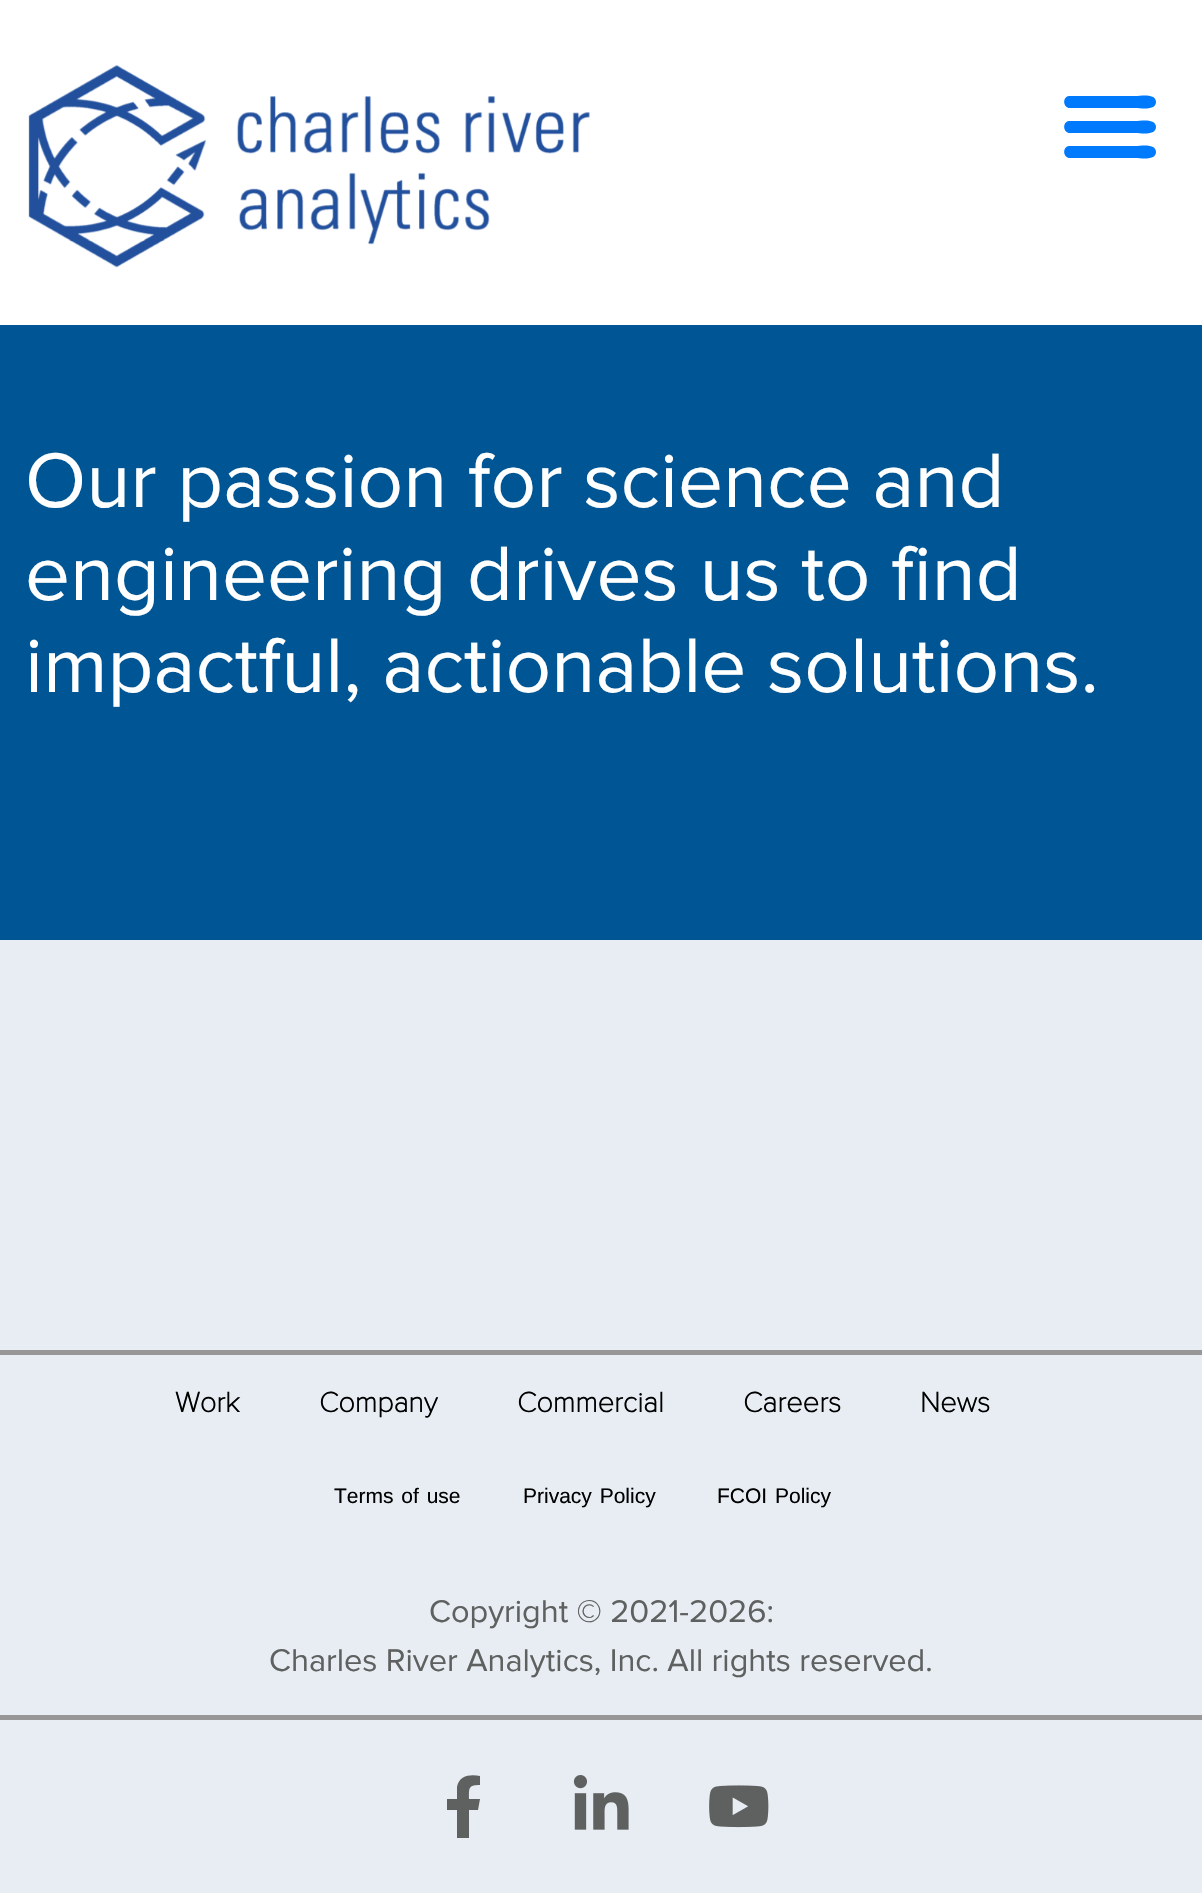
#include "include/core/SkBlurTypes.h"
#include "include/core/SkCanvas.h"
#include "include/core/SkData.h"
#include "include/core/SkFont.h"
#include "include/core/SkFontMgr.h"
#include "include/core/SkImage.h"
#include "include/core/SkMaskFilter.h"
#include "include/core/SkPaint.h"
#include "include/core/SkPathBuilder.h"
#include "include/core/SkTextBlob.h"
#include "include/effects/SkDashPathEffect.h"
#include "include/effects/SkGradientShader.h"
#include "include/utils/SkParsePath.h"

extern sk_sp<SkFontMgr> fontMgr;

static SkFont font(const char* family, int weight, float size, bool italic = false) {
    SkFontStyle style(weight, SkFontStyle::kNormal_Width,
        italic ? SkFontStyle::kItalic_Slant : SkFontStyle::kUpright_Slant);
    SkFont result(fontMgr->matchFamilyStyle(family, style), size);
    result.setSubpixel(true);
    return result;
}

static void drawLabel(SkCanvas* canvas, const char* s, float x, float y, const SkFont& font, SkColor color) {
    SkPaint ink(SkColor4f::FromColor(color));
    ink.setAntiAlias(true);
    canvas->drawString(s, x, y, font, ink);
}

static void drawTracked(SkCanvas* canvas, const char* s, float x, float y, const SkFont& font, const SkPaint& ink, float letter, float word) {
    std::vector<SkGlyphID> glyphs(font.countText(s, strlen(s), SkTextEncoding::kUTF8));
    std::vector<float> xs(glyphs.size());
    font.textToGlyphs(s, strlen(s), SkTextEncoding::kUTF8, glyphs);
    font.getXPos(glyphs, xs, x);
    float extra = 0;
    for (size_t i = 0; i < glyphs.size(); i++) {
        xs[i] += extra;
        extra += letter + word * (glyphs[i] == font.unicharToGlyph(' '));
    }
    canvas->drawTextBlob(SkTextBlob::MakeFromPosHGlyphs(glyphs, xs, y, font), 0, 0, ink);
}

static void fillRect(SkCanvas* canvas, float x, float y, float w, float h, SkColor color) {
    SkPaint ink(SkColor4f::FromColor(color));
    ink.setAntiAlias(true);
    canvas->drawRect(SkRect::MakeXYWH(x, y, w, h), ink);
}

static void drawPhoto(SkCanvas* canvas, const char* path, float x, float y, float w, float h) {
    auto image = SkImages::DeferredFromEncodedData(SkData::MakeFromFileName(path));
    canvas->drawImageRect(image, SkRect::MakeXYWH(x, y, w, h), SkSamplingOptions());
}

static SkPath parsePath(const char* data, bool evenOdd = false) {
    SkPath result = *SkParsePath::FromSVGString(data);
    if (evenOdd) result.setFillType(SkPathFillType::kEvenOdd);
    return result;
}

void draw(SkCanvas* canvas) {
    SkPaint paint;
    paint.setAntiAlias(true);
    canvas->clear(0xFF005695);
    fillRect(canvas, 0, 0, 1202, 325, 0xFFFFFFFF);
    drawPhoto(canvas, "assets/img1.png", 28, 65, 562, 203);
    paint.setColor(0xFF007AFC);
    canvas->drawPath(parsePath("M1070 108H1136C1140 108 1156 111 1156 102C1156 93 1140 96 1136 96H1069C1062 97 1063 108 1070 108ZM1070 133H1136C1140 133 1156 136 1156 127C1156 118 1140 121 1136 121H1069C1062 122 1063 133 1070 133ZM1070 158H1136C1140 158 1156 161 1156 152C1156 143 1140 146 1136 146H1069C1062 147 1063 158 1070 158Z"), paint);
    SkFont font1 = font("Proxima Nova", 400, 80);
    drawLabel(canvas, "Our passion for science and", 25, 507, font1, 0xFFFFFFFF);
    drawLabel(canvas, "engineering drives us to find", 25, 600, font1, 0xFFFFFFFF);
    drawLabel(canvas, "impactful, actionable solutions.", 25, 692, font1, 0xFFFFFFFF);
    fillRect(canvas, 0, 940, 1202, 410, 0xFFE7EDF2);
    fillRect(canvas, 0, 1355, 1202, 360, 0xFFE7EDF2);
    fillRect(canvas, 0, 1350, 1202, 5, 0xFF979797);
    fillRect(canvas, 0, 1715, 1202, 5, 0xFF979797);
    SkFont font2 = font("Proxima Nova", 700, 29);
    drawLabel(canvas, "Work", 175, 1412, font2, 0xFF000000);
    drawLabel(canvas, "Company", 319, 1412, font2, 0xFF000000);
    drawLabel(canvas, "Commercial", 517, 1412, font2, 0xFF000000);
    drawLabel(canvas, "Careers", 743, 1412, font2, 0xFF000000);
    drawLabel(canvas, "News", 920, 1412, font2, 0xFF000000);
    SkFont font3 = font("Liberation Sans", 400, 21);
    paint.setColor(0xFF000000);
    drawTracked(canvas, "Terms of use", 334, 1503, font3, paint, 0, 2);
    drawTracked(canvas, "Privacy Policy", 523, 1503, font3, paint, 0, 2);
    drawTracked(canvas, "FCOI Policy", 717, 1503, font3, paint, 0, 2);
    SkFont font4 = font("Proxima Nova", 400, 32.5f);
    drawLabel(canvas, "Copyright © 2021-2026:", 429, 1622, font4, 0xFF5F6060);
    drawLabel(canvas, "Charles River Analytics, Inc. All rights reserved.", 269, 1671, font4, 0xFF5F6060);
    fillRect(canvas, 0, 1720, 1202, 173, 0xFFE7EDF2);
    paint.setColor(0xFF5F6060);
    canvas->drawPath(parsePath("M478 1810L480 1799H469C469 1788 468 1785 480 1785V1776C471 1774 459 1775 457 1787V1799H447V1810H457V1838H469V1810Z"), paint);
    drawPhoto(canvas, "assets/img2.png", 573, 1775, 56, 55);
    drawPhoto(canvas, "assets/img3.png", 709, 1785, 60, 43);
}
